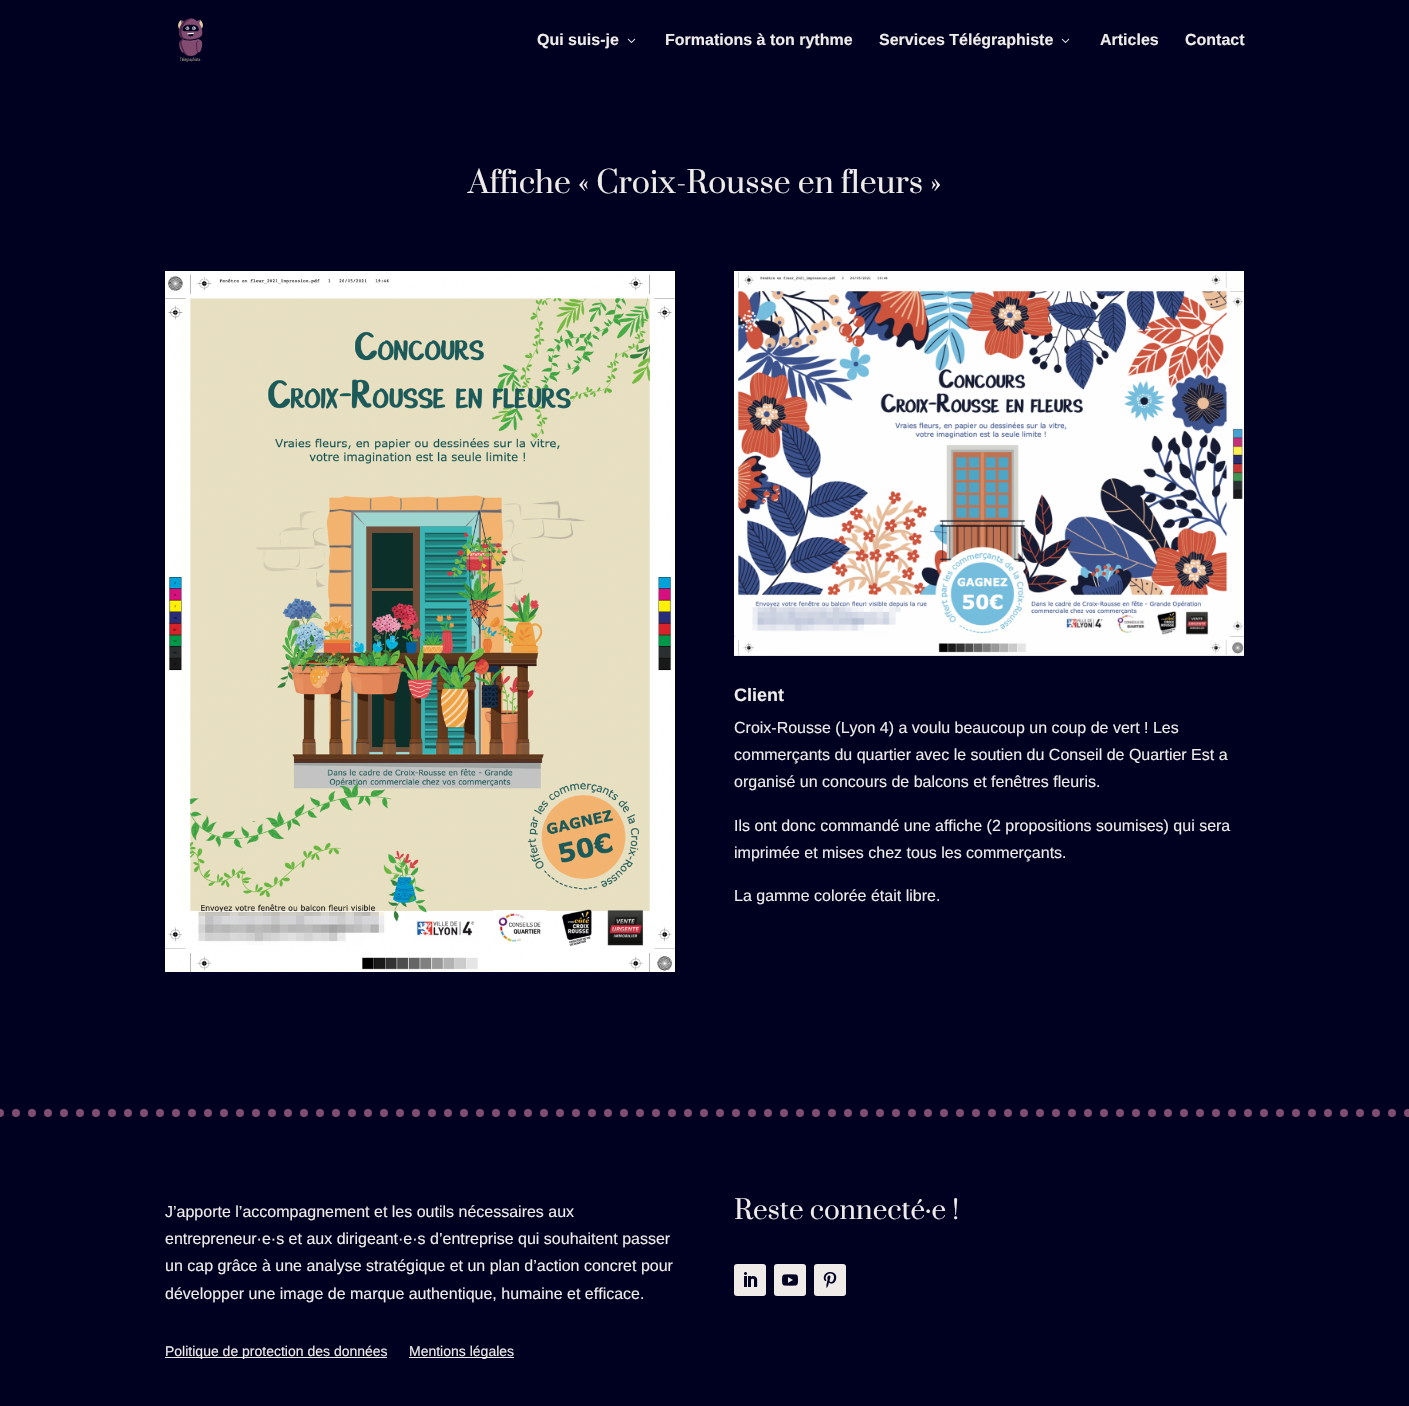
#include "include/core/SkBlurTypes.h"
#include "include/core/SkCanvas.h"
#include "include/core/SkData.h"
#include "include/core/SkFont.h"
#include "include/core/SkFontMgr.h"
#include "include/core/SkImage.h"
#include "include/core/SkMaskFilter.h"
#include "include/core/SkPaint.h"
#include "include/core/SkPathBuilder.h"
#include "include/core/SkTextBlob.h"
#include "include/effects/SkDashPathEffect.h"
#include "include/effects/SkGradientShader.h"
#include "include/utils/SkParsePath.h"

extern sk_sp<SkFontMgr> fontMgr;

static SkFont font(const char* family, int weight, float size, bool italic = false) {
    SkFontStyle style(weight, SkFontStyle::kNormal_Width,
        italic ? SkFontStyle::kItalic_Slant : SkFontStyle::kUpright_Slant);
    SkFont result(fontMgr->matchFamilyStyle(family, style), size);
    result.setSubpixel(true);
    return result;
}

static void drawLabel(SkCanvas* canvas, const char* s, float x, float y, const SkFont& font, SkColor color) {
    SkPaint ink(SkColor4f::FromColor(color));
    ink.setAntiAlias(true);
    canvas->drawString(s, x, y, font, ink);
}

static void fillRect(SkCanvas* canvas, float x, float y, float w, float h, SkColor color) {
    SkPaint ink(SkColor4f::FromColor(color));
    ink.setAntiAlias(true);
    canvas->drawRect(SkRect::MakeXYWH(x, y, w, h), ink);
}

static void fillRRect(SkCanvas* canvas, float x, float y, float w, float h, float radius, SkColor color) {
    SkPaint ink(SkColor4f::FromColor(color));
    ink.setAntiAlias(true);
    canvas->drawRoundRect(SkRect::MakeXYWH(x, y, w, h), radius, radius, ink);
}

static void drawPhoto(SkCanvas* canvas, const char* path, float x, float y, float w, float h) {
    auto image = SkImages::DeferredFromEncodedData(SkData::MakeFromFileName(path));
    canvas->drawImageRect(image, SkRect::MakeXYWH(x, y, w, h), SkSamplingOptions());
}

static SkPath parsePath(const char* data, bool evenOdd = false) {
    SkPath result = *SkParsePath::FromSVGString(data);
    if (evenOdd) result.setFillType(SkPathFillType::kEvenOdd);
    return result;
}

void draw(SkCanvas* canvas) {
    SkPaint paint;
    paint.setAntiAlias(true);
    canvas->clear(0xFF000021);
    fillRect(canvas, 0, 80, 1409, 1, 0xFF00001E);
    drawPhoto(canvas, "assets/img1.png", 178, 18, 25, 44);
    SkFont font1 = font("Liberation Sans", 700, 16);
    drawLabel(canvas, "Qui suis-je", 537, 45, font1, 0xFFEFEBE9);
    drawPhoto(canvas, "assets/img2.png", 627, 38, 9, 5);
    drawLabel(canvas, "Formations à ton rythme", 665, 45, font1, 0xFFEFEBE9);
    drawLabel(canvas, "Services Télégraphiste", 879, 45, font1, 0xFFEFEBE9);
    drawPhoto(canvas, "assets/img2.png", 1061, 38, 9, 5);
    drawLabel(canvas, "Articles", 1100, 45, font1, 0xFFEFEBE9);
    drawLabel(canvas, "Contact", 1185, 45, font1, 0xFFEFEBE9);
    SkFont font2 = font("Prata", 400, 30);
    drawLabel(canvas, "Affiche « Croix-Rousse en fleurs »", 468, 193, font2, 0xFFEFEBE9);
    drawPhoto(canvas, "assets/img3.png", 165, 271, 510, 701);
    drawPhoto(canvas, "assets/img4.png", 734, 271, 510, 385);
    SkFont font3 = font("Liberation Sans", 700, 18);
    drawLabel(canvas, "Client", 734, 701, font3, 0xFFEFEBE9);
    SkFont font4 = font("Liberation Sans", 400, 16);
    drawLabel(canvas, "Croix-Rousse (Lyon 4) a voulu beaucoup un coup de vert ! Les", 734, 733, font4, 0xFFEFEBE9);
    drawLabel(canvas, "commerçants du quartier avec le soutien du Conseil de Quartier Est a", 734, 760, font4, 0xFFEFEBE9);
    drawLabel(canvas, "organisé un concours de balcons et fenêtres fleuris.", 734, 787, font4, 0xFFEFEBE9);
    drawLabel(canvas, "Ils ont donc commandé une affiche (2 propositions soumises) qui sera", 734, 831, font4, 0xFFEFEBE9);
    drawLabel(canvas, "imprimée et mises chez tous les commerçants.", 734, 858, font4, 0xFFEFEBE9);
    drawLabel(canvas, "La gamme colorée était libre.", 734, 901, font4, 0xFFEFEBE9);
    paint.setStroke(true);
    paint.setStrokeWidth(8);
    paint.setStrokeCap(SkPaint::kRound_Cap);
    paint.setColor(0xFF824C71);
    paint.setPathEffect(SkDashPathEffect::Make({{0, 16}}, 0));
    canvas->drawPath(parsePath("M0 1113H1409"), paint);
    paint.setPathEffect(nullptr);
    drawLabel(canvas, "J’apporte l’accompagnement et les outils nécessaires aux", 165, 1217, font4, 0xFFEFEBE9);
    drawLabel(canvas, "entrepreneur·e·s et aux dirigeant·e·s d’entreprise qui souhaitent passer", 165, 1244, font4, 0xFFEFEBE9);
    drawLabel(canvas, "un cap grâce à une analyse stratégique et un plan d’action concret pour", 165, 1271, font4, 0xFFEFEBE9);
    drawLabel(canvas, "développer une image de marque authentique, humaine et efficace.", 165, 1299, font4, 0xFFEFEBE9);
    fillRect(canvas, 165, 1357, 222, 1, 0xFFEFEBE9);
    SkFont font5 = font("Liberation Sans", 400, 14);
    drawLabel(canvas, "Politique de protection des données", 165, 1356, font5, 0xFFEFEBE9);
    fillRect(canvas, 409, 1357, 105, 1, 0xFFEFEBE9);
    drawLabel(canvas, "Mentions légales", 409, 1356, font5, 0xFFEFEBE9);
    SkFont font6 = font("Prata", 400, 26);
    drawLabel(canvas, "Reste connecté·e !", 734, 1219, font6, 0xFFEFEBE9);
    fillRRect(canvas, 734, 1264, 32, 32, 3, 0xFFEFEBE9);
    drawPhoto(canvas, "assets/img5.png", 744, 1272, 14, 15);
    fillRRect(canvas, 774, 1264, 32, 32, 3, 0xFFEFEBE9);
    drawPhoto(canvas, "assets/img6.png", 782, 1274, 16, 12);
    fillRRect(canvas, 814, 1264, 32, 32, 3, 0xFFEFEBE9);
    drawPhoto(canvas, "assets/img7.png", 823, 1272, 14, 16);
}
